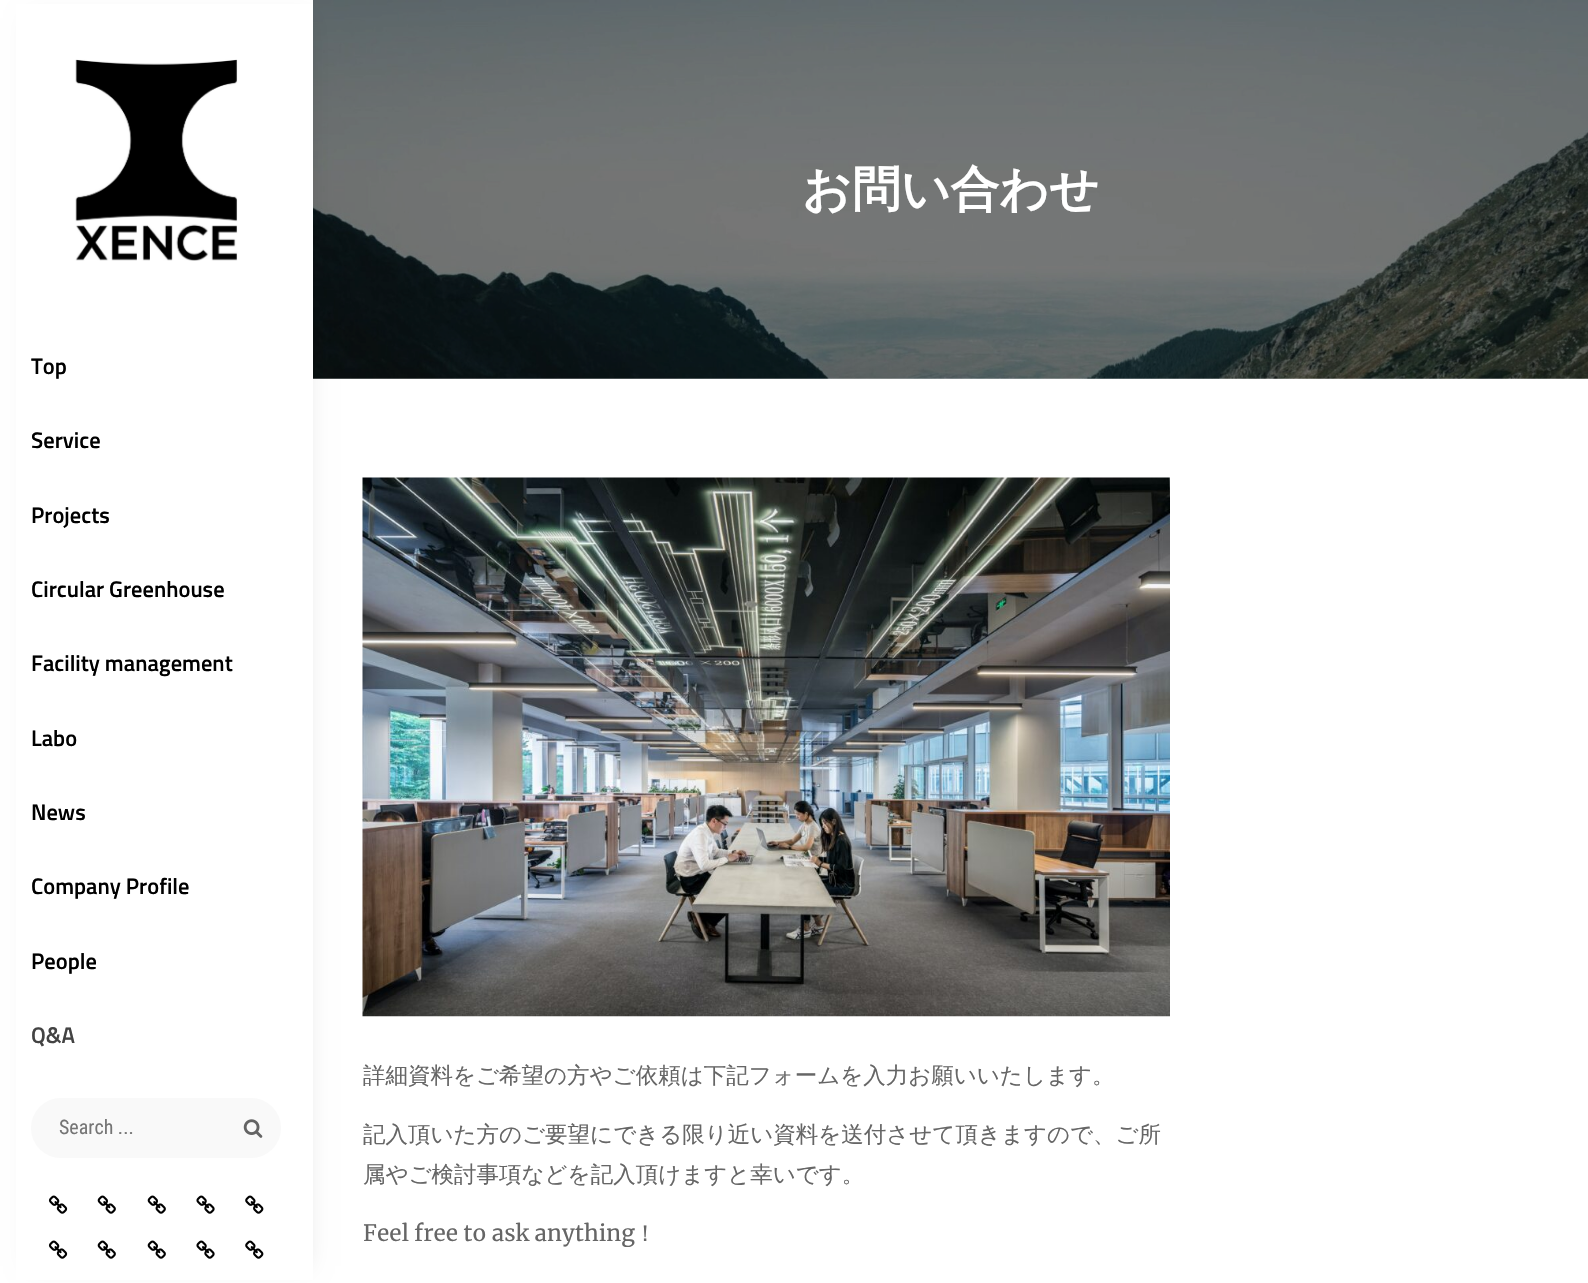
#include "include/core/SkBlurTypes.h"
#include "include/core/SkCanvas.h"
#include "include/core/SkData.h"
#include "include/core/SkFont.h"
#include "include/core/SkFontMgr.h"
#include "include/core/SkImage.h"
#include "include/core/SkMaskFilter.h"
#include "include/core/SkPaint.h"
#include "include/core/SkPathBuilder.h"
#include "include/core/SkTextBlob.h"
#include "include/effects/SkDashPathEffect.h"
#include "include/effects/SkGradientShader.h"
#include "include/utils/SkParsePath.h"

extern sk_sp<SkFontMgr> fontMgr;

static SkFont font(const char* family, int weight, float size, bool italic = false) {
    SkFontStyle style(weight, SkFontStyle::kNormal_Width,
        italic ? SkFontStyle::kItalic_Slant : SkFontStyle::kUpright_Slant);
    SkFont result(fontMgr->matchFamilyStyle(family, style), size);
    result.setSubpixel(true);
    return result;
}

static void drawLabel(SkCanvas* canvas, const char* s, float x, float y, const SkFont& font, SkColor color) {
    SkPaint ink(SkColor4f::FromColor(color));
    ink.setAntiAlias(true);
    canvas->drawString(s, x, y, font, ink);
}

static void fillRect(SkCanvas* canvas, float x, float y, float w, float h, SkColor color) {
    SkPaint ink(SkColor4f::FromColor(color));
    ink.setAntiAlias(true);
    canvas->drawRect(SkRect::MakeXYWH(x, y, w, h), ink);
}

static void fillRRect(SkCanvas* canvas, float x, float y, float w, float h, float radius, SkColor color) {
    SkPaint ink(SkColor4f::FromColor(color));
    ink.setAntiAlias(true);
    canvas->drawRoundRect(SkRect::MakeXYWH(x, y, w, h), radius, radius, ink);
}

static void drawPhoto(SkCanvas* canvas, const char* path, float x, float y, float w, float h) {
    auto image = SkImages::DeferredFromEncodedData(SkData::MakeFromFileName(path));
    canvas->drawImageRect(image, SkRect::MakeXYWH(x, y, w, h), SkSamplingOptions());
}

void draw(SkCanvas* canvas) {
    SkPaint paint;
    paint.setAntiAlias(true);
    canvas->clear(0xFFFFFFFF);
    drawPhoto(canvas, "assets/img7.png", 313, 0, 1275, 379);
    paint.setColor(0x1A000000);
    paint.setMaskFilter(SkMaskFilter::MakeBlur(kNormal_SkBlurStyle, 11));
    canvas->drawRect(SkRect::MakeXYWH(30, 18, 278, 1248), paint);
    paint.setMaskFilter(nullptr);
    fillRect(canvas, 16, 4, 297, 1276, 0xFFFFFFFF);
    drawPhoto(canvas, "assets/img1.png", 75, 59, 163, 202);
    SkFont font1 = font("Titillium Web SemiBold", 600, 22.5f);
    drawLabel(canvas, "Top", 31, 374, font1, 0xFF000000);
    drawLabel(canvas, "Service", 31, 448, font1, 0xFF000000);
    drawLabel(canvas, "Projects", 31, 523, font1, 0xFF000000);
    drawLabel(canvas, "Circular Greenhouse", 31, 597, font1, 0xFF000000);
    drawLabel(canvas, "Facility management", 31, 671, font1, 0xFF000000);
    drawLabel(canvas, "Labo", 31, 746, font1, 0xFF000000);
    drawLabel(canvas, "News", 31, 820, font1, 0xFF000000);
    drawLabel(canvas, "Company Profile", 31, 894, font1, 0xFF000000);
    drawLabel(canvas, "People", 31, 969, font1, 0xFF000000);
    drawLabel(canvas, "Q&A", 31, 1043, font1, 0xFF434343);
    fillRRect(canvas, 31, 1098, 250, 60, 30, 0xFFF9F9F9);
    SkFont font2 = font("Roboto Condensed", 400, 20);
    drawLabel(canvas, "Search ...", 59, 1134, font2, 0xFF757575);
    drawPhoto(canvas, "assets/img2.png", 243, 1119, 20, 19);
    drawPhoto(canvas, "assets/img3.png", 48, 1195, 20, 19);
    drawPhoto(canvas, "assets/img4.png", 97, 1195, 19, 19);
    drawPhoto(canvas, "assets/img4.png", 147, 1195, 19, 19);
    drawPhoto(canvas, "assets/img5.png", 196, 1195, 19, 19);
    drawPhoto(canvas, "assets/img6.png", 245, 1195, 19, 19);
    drawPhoto(canvas, "assets/img3.png", 48, 1240, 20, 19);
    drawPhoto(canvas, "assets/img4.png", 97, 1240, 19, 19);
    drawPhoto(canvas, "assets/img4.png", 147, 1240, 19, 19);
    drawPhoto(canvas, "assets/img5.png", 196, 1240, 19, 19);
    drawPhoto(canvas, "assets/img6.png", 245, 1240, 19, 19);
    SkFont font3 = font("WenQuanYi Zen Hei", 700, 48.75f);
    drawLabel(canvas, "お問い合わせ", 802, 206, font3, 0xFFFFFFFF);
    drawPhoto(canvas, "assets/img8.png", 362, 477, 808, 540);
    SkFont font4 = font("WenQuanYi Zen Hei", 500, 22.5f);
    drawLabel(canvas, "詳細資料をご希望の方やご依頼は下記フォームを入力お願いいたします。", 363, 1083, font4, 0xFF666666);
    drawLabel(canvas, "記入頂いた方のご要望にできる限り近い資料を送付させて頂きますので、ご所", 363, 1142, font4, 0xFF666666);
    drawLabel(canvas, "属やご検討事項などを記入頂けますと幸いです。", 363, 1182, font4, 0xFF666666);
    SkFont font5 = font("Merriweather", 400, 22.5f);
    drawLabel(canvas, "Feel free to ask anything", 363, 1241, font5, 0xFF666666);
    drawLabel(canvas, "！", 634, 1241, font4, 0xFF666666);
}
